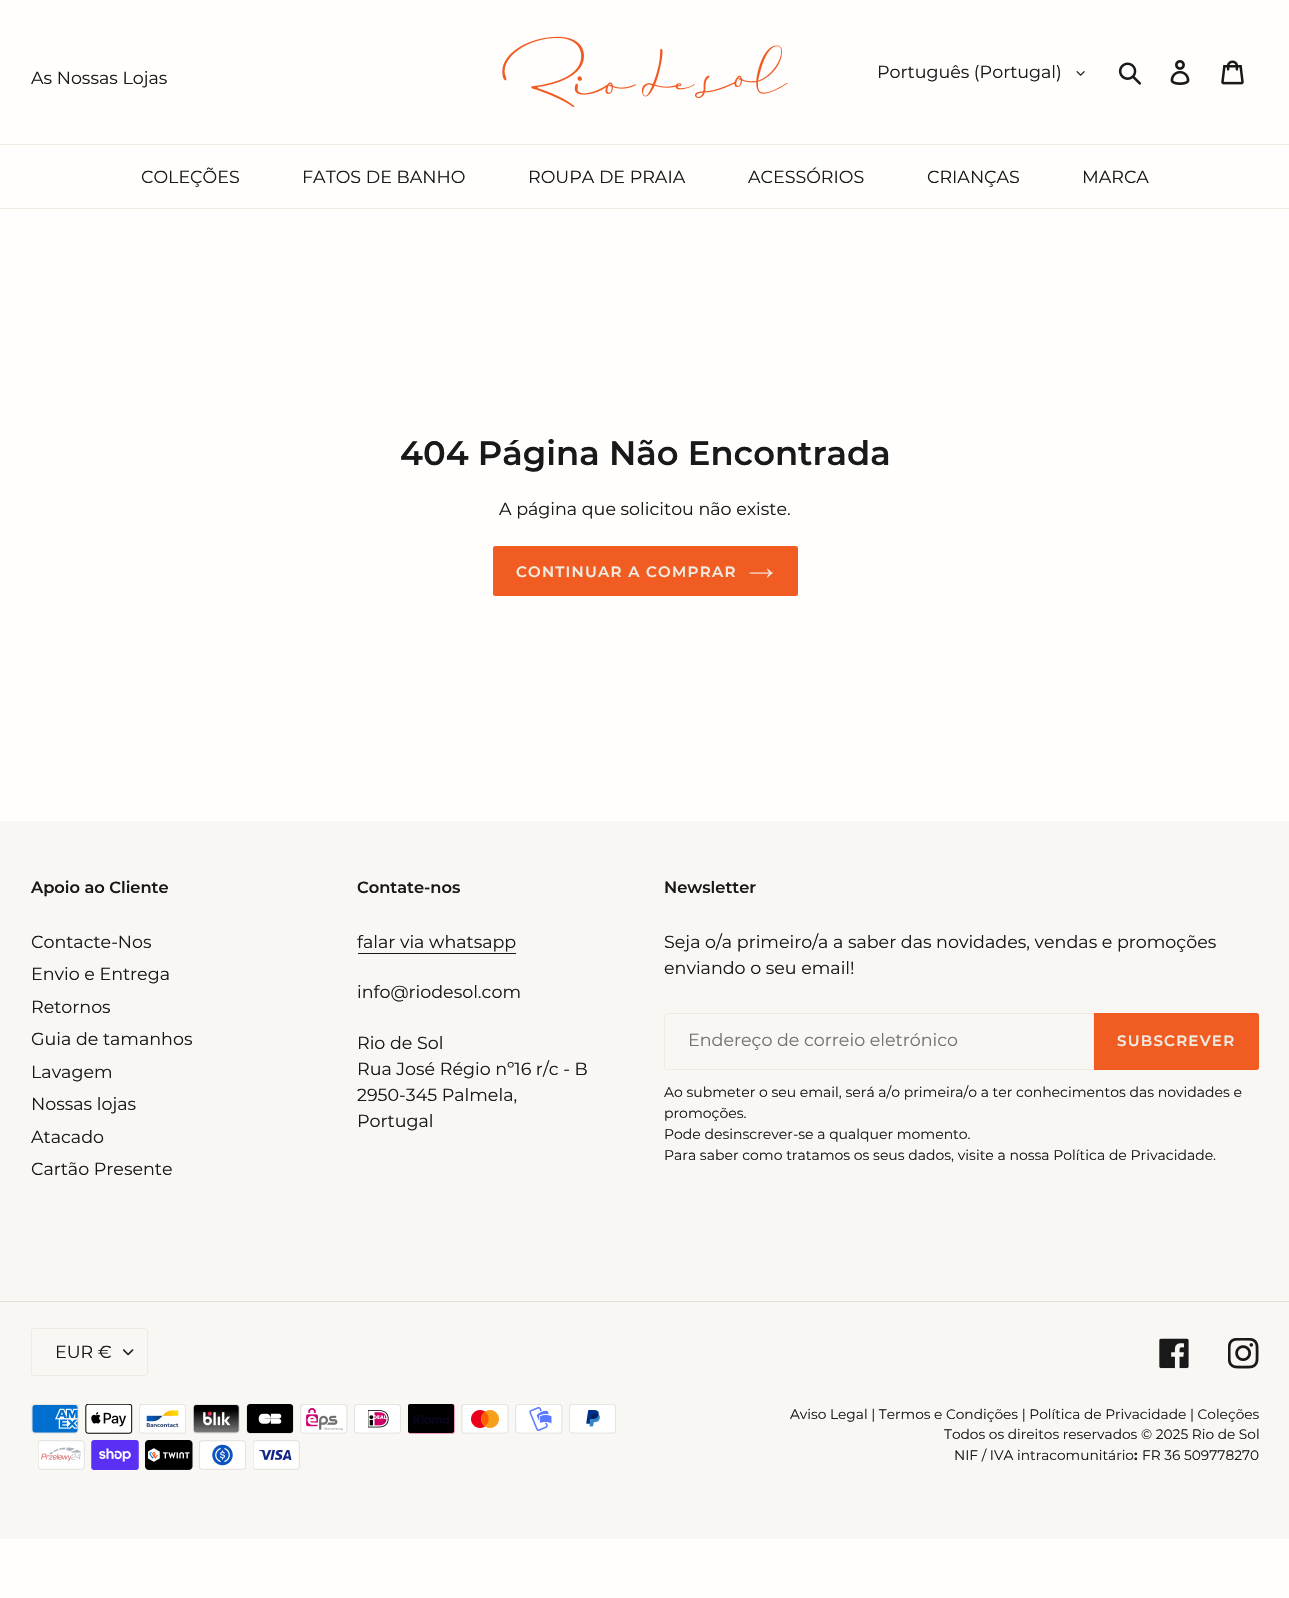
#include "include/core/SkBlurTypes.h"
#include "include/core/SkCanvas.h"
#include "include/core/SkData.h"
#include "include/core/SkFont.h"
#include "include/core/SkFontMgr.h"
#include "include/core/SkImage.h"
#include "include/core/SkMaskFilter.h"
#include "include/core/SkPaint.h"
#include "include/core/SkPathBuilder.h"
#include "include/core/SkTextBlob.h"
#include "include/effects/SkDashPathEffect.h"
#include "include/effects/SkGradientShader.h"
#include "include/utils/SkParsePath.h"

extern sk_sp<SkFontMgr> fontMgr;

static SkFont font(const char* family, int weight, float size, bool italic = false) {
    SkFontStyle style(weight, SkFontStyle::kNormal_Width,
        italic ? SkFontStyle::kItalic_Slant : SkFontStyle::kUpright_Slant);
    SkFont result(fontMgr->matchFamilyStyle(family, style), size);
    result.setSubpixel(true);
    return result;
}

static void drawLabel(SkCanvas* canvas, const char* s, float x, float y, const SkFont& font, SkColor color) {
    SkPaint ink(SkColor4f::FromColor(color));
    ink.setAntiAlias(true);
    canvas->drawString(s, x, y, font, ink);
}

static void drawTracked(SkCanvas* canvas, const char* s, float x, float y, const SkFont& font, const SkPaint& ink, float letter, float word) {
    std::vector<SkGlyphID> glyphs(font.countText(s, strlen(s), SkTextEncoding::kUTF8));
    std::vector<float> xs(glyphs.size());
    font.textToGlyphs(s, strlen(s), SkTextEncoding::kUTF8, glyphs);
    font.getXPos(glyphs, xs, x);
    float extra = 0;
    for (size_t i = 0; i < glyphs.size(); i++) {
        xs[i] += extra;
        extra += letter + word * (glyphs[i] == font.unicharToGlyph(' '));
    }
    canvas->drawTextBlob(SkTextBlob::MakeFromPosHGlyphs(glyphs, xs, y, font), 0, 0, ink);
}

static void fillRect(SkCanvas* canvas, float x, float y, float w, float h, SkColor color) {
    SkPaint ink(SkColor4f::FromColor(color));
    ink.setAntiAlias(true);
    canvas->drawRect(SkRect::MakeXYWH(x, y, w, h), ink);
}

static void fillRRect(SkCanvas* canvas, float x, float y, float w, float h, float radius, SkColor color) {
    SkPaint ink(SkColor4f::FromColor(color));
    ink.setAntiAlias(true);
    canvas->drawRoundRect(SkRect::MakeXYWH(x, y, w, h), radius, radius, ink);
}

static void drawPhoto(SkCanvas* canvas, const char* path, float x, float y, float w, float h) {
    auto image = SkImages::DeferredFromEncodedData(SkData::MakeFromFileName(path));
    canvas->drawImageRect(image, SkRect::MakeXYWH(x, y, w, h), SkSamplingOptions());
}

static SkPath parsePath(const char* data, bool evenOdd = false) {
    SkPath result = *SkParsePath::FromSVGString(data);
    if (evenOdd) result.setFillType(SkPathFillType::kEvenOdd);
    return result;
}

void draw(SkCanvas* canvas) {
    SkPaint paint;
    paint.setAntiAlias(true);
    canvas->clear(0xFFFFFEFD);
    SkFont font1 = font("Montserrat", 400, 17.5f);
    drawLabel(canvas, "As Nossas Lojas", 31, 84, font1, 0xFF191919);
    drawPhoto(canvas, "assets/img1.png", 502, 36, 286, 72);
    drawLabel(canvas, "Português (Portugal)", 877, 78, font1, 0xFF191919);
    drawPhoto(canvas, "assets/img2.png", 1076, 71, 9, 5);
    drawPhoto(canvas, "assets/img3.png", 1118, 62, 23, 23);
    drawPhoto(canvas, "assets/img4.png", 1170, 60, 20, 25);
    drawPhoto(canvas, "assets/img5.png", 1221, 60, 23, 25);
    fillRect(canvas, 0, 144, 1289, 1, 0xFFF0EBE1);
    fillRect(canvas, 0, 208, 1289, 1, 0xFFF0EBE1);
    drawLabel(canvas, "COLEÇÕES", 141, 183, font1, 0xFF191919);
    drawLabel(canvas, "FATOS DE BANHO", 302, 183, font1, 0xFF191919);
    drawLabel(canvas, "ROUPA DE PRAIA", 528, 183, font1, 0xFF191919);
    drawLabel(canvas, "ACESSÓRIOS", 748, 183, font1, 0xFF191919);
    drawLabel(canvas, "CRIANÇAS", 927, 183, font1, 0xFF191919);
    drawLabel(canvas, "MARCA", 1082, 183, font1, 0xFF191919);
    SkFont font2 = font("Montserrat", 600, 33.75f);
    drawLabel(canvas, "404 Página Não Encontrada", 400, 465, font2, 0xFF191919);
    drawLabel(canvas, "A página que solicitou não existe.", 499, 515, font1, 0xFF191919);
    fillRRect(canvas, 493, 546, 305, 50, 2.5f, 0xFFF15C22);
    SkFont font3 = font("Montserrat", 600, 15);
    paint.setColor(0xFFF0EBE1);
    drawTracked(canvas, "CONTINUAR A COMPRAR", 516, 577, font3, paint, 1.25f, 0);
    drawPhoto(canvas, "assets/img6.png", 749, 568, 24, 10);
    fillRect(canvas, 0, 821, 1289, 718, 0xFFF9F7F4);
    SkFont font4 = font("Montserrat", 600, 16.25f);
    drawLabel(canvas, "Apoio ao Cliente", 31, 893, font4, 0xFF191919);
    drawLabel(canvas, "Contacte-Nos", 31, 948, font1, 0xFF191919);
    drawLabel(canvas, "Envio e Entrega", 31, 980, font1, 0xFF191919);
    drawLabel(canvas, "Retornos", 31, 1013, font1, 0xFF191919);
    drawLabel(canvas, "Guia de tamanhos", 31, 1045, font1, 0xFF191919);
    drawLabel(canvas, "Lavagem", 31, 1078, font1, 0xFF191919);
    drawLabel(canvas, "Nossas lojas", 31, 1110, font1, 0xFF191919);
    drawLabel(canvas, "Atacado", 31, 1143, font1, 0xFF191919);
    drawLabel(canvas, "Cartão Presente", 31, 1175, font1, 0xFF191919);
    drawLabel(canvas, "Contate-nos", 357, 893, font4, 0xFF191919);
    drawLabel(canvas, "falar via whatsapp", 357, 948, font1, 0xFF191919);
    fillRect(canvas, 358, 953, 158, 1, 0xFF191919);
    drawLabel(canvas, "info@riodesol.com", 357, 998, font1, 0xFF191919);
    drawLabel(canvas, "Rio de Sol", 357, 1049, font1, 0xFF191919);
    drawLabel(canvas, "Rua José Régio nº16 r/c - B", 357, 1075, font1, 0xFF191919);
    drawLabel(canvas, "2950-345 Palmela,", 357, 1101, font1, 0xFF191919);
    drawLabel(canvas, "Portugal", 357, 1127, font1, 0xFF191919);
    drawLabel(canvas, "Newsletter", 664, 893, font4, 0xFF191919);
    drawLabel(canvas, "Seja o/a primeiro/a a saber das novidades, vendas e promoções", 664, 948, font1, 0xFF191919);
    drawLabel(canvas, "enviando o seu email!", 664, 974, font1, 0xFF191919);
    paint.setStroke(true);
    paint.setStrokeWidth(1);
    canvas->drawPath(parsePath("M666.5 1013.5H1093.5V1069.5H666.5C665.5 1069.5 664.5 1068.5 664.5 1067.5V1015.5C664.5 1014.5 665.5 1013.5 666.5 1013.5Z"), paint);
    drawLabel(canvas, "Endereço de correio eletrónico", 688, 1046, font1, 0xFF737271);
    paint.setStroke(false);
    paint.setColor(0xFFF15C22);
    canvas->drawPath(parsePath("M1094 1013H1256.5C1258 1013 1259 1014 1259 1015.5V1067.5C1259 1069 1258 1070 1256.5 1070H1094Z"), paint);
    paint.setColor(0xFFF0EBE1);
    drawTracked(canvas, "SUBSCREVER", 1117, 1046, font3, paint, 1.25f, 0);
    SkFont font5 = font("Montserrat", 400, 14);
    drawLabel(canvas, "Ao submeter o seu email, será a/o primeira/o a ter conhecimentos das novidades e", 664, 1097, font5, 0xFF191919);
    drawLabel(canvas, "promoções.", 664, 1118, font5, 0xFF191919);
    drawLabel(canvas, "Pode desinscrever-se a qualquer momento.", 664, 1139, font5, 0xFF191919);
    drawLabel(canvas, "Para saber como tratamos os seus dados, visite a nossa Política de Privacidade.", 664, 1160, font5, 0xFF191919);
    fillRect(canvas, 0, 1301, 1289, 1, 0xFFE7DFD3);
    drawPhoto(canvas, "assets/img7.png", 123, 1349, 11, 7);
    paint.setStroke(true);
    canvas->drawRoundRect(SkRect::MakeXYWH(31.5f, 1328.5f, 116, 47), 2, 2, paint);
    drawLabel(canvas, "EUR €", 55, 1358, font1, 0xFF191919);
    drawPhoto(canvas, "assets/img8.png", 1159, 1338, 30, 31);
    drawPhoto(canvas, "assets/img9.png", 1228, 1338, 31, 31);
    drawPhoto(canvas, "assets/img10.png", 31, 1404, 48, 30);
    drawPhoto(canvas, "assets/img11.png", 85, 1404, 48, 30);
    drawPhoto(canvas, "assets/img12.png", 139, 1404, 47, 30);
    drawPhoto(canvas, "assets/img13.png", 193, 1404, 47, 30);
    drawPhoto(canvas, "assets/img14.png", 246, 1404, 48, 30);
    drawPhoto(canvas, "assets/img15.png", 300, 1404, 48, 30);
    drawPhoto(canvas, "assets/img16.png", 354, 1404, 47, 30);
    drawPhoto(canvas, "assets/img17.png", 408, 1404, 47, 30);
    drawPhoto(canvas, "assets/img18.png", 461, 1404, 48, 30);
    drawPhoto(canvas, "assets/img19.png", 515, 1404, 48, 30);
    drawPhoto(canvas, "assets/img20.png", 569, 1404, 47, 30);
    drawPhoto(canvas, "assets/img21.png", 38, 1440, 47, 30);
    drawPhoto(canvas, "assets/img22.png", 91, 1440, 48, 30);
    drawPhoto(canvas, "assets/img23.png", 145, 1440, 48, 30);
    drawPhoto(canvas, "assets/img24.png", 199, 1440, 47, 30);
    drawPhoto(canvas, "assets/img25.png", 253, 1440, 47, 30);
    SkFont font6 = font("Montserrat", 400, 13.75f);
    drawLabel(canvas, "Aviso Legal | Termos e Condições | Política de Privacidade | Coleções", 790, 1419, font6, 0xFF191919);
    drawLabel(canvas, "Todos os direitos reservados © 2025 Rio de Sol", 944, 1439, font6, 0xFF191919);
    drawLabel(canvas, "NIF / IVA intracomunitário", 954, 1460, font6, 0xFF191919);
    SkFont font7 = font("Montserrat", 700, 13.75f);
    drawLabel(canvas, ":", 1134, 1460, font7, 0xFF191919);
    drawLabel(canvas, "FR 36 509778270", 1142, 1460, font6, 0xFF191919);
}
